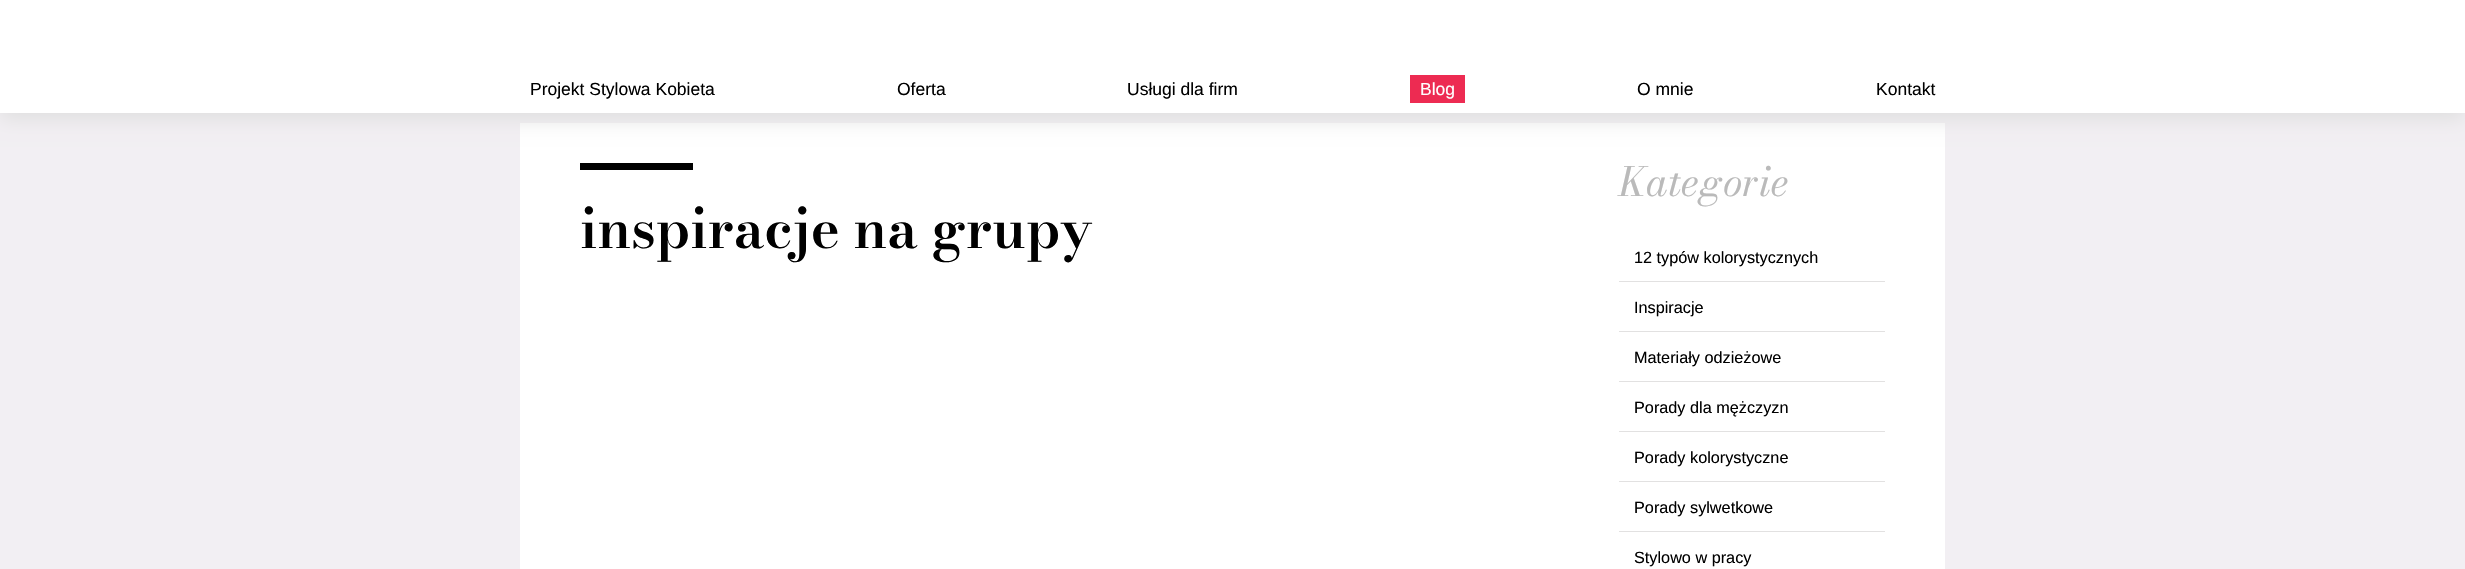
#include "include/core/SkBlurTypes.h"
#include "include/core/SkCanvas.h"
#include "include/core/SkData.h"
#include "include/core/SkFont.h"
#include "include/core/SkFontMgr.h"
#include "include/core/SkImage.h"
#include "include/core/SkMaskFilter.h"
#include "include/core/SkPaint.h"
#include "include/core/SkPathBuilder.h"
#include "include/core/SkTextBlob.h"
#include "include/effects/SkDashPathEffect.h"
#include "include/effects/SkGradientShader.h"
#include "include/utils/SkParsePath.h"

extern sk_sp<SkFontMgr> fontMgr;

static SkFont font(const char* family, int weight, float size, bool italic = false) {
    SkFontStyle style(weight, SkFontStyle::kNormal_Width,
        italic ? SkFontStyle::kItalic_Slant : SkFontStyle::kUpright_Slant);
    SkFont result(fontMgr->matchFamilyStyle(family, style), size);
    result.setSubpixel(true);
    return result;
}

static void drawLabel(SkCanvas* canvas, const char* s, float x, float y, const SkFont& font, SkColor color) {
    SkPaint ink(SkColor4f::FromColor(color));
    ink.setAntiAlias(true);
    canvas->drawString(s, x, y, font, ink);
}

static void fillRect(SkCanvas* canvas, float x, float y, float w, float h, SkColor color) {
    SkPaint ink(SkColor4f::FromColor(color));
    ink.setAntiAlias(true);
    canvas->drawRect(SkRect::MakeXYWH(x, y, w, h), ink);
}

void draw(SkCanvas* canvas) {
    SkPaint paint;
    paint.setAntiAlias(true);
    canvas->clear(0xFFF2EFF3);
    fillRect(canvas, 520, 123, 1425, 446, 0xFFFFFFFF);
    paint.setColor(0xFFDFDFDF);
    paint.setMaskFilter(SkMaskFilter::MakeBlur(kNormal_SkBlurStyle, 9.5f));
    canvas->drawRect(SkRect::MakeXYWH(0, 6, 2465, 113), paint);
    paint.setMaskFilter(nullptr);
    fillRect(canvas, 0, 0, 2465, 113, 0xFFFFFFFF);
    SkFont font1 = font("Liberation Sans", 400, 17.5f);
    drawLabel(canvas, "Projekt Stylowa Kobieta", 530, 95, font1, 0xFF000000);
    drawLabel(canvas, "Oferta", 897, 95, font1, 0xFF000000);
    drawLabel(canvas, "Usługi dla firm", 1127, 95, font1, 0xFF000000);
    fillRect(canvas, 1410, 75, 55, 28, 0xFFED2B52);
    drawLabel(canvas, "Blog", 1420, 95, font1, 0xFFFFFFFF);
    drawLabel(canvas, "O mnie", 1637, 95, font1, 0xFF000000);
    drawLabel(canvas, "Kontakt", 1876, 95, font1, 0xFF000000);
    fillRect(canvas, 580, 163, 113, 7, 0xFF000000);
    SkFont font2 = font("Bodoni Moda", 600, 55);
    drawLabel(canvas, "inspiracje na grupy", 580, 248, font2, 0xFF000000);
    SkFont font3 = font("Bodoni Moda", 400, 40, true);
    drawLabel(canvas, "Kategorie", 1619, 196, font3, 0xFFBABABA);
    fillRect(canvas, 1619, 281, 266, 1, 0xFFE2E1E1);
    SkFont font4 = font("Liberation Sans", 400, 16.25f);
    drawLabel(canvas, "12 typów kolorystycznych", 1634, 263, font4, 0xFF000000);
    fillRect(canvas, 1619, 331, 266, 1, 0xFFE2E1E1);
    drawLabel(canvas, "Inspiracje", 1634, 313, font4, 0xFF000000);
    fillRect(canvas, 1619, 381, 266, 1, 0xFFE2E1E1);
    drawLabel(canvas, "Materiały odzieżowe", 1634, 363, font4, 0xFF000000);
    fillRect(canvas, 1619, 431, 266, 1, 0xFFE2E1E1);
    drawLabel(canvas, "Porady dla mężczyzn", 1634, 413, font4, 0xFF000000);
    fillRect(canvas, 1619, 481, 266, 1, 0xFFE2E1E1);
    drawLabel(canvas, "Porady kolorystyczne", 1634, 463, font4, 0xFF000000);
    fillRect(canvas, 1619, 531, 266, 1, 0xFFE2E1E1);
    drawLabel(canvas, "Porady sylwetkowe", 1634, 513, font4, 0xFF000000);
    drawLabel(canvas, "Stylowo w pracy", 1634, 563, font4, 0xFF000000);
}
